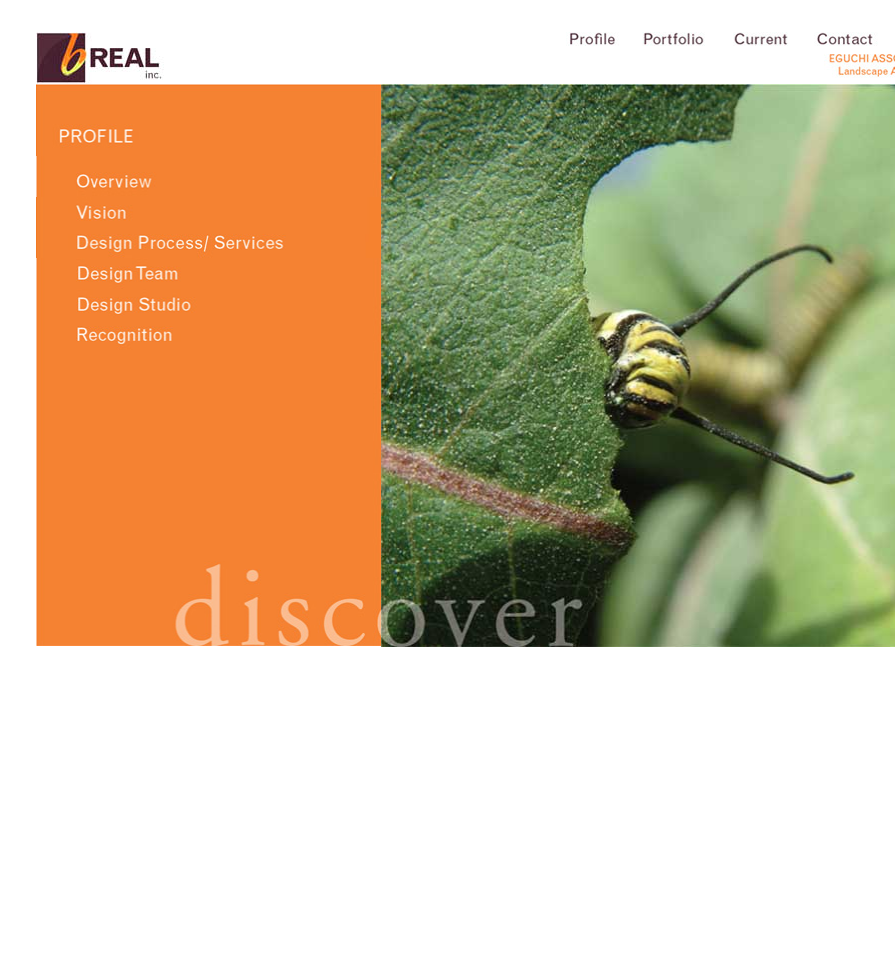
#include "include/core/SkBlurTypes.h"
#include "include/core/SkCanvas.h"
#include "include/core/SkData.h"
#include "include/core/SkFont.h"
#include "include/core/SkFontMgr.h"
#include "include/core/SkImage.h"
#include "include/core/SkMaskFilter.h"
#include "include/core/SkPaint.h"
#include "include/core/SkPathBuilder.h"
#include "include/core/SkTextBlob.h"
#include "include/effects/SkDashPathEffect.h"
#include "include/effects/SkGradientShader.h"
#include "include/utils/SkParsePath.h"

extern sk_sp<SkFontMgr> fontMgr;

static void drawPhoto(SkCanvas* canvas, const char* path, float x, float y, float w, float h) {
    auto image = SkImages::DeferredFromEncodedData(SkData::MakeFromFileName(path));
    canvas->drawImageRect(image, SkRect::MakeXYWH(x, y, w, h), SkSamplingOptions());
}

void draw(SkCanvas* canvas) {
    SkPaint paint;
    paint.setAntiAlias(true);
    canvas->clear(0xFFFFFFFF);
    drawPhoto(canvas, "assets/img1.png", 36, 32, 128, 52);
    drawPhoto(canvas, "assets/img2.png", 566, 32, 53, 14);
    drawPhoto(canvas, "assets/img3.png", 642, 32, 63, 14);
    drawPhoto(canvas, "assets/img4.png", 733, 32, 55, 14);
    drawPhoto(canvas, "assets/img5.png", 814, 32, 64, 14);
    drawPhoto(canvas, "assets/img6.png", 824, 54, 71, 24);
    drawPhoto(canvas, "assets/img7.png", 36, 84, 345, 72);
    drawPhoto(canvas, "assets/img8.png", 36, 156, 345, 41);
    drawPhoto(canvas, "assets/img9.png", 36, 197, 345, 29);
    drawPhoto(canvas, "assets/img10.png", 36, 226, 345, 32);
    drawPhoto(canvas, "assets/img11.png", 36, 258, 345, 31);
    drawPhoto(canvas, "assets/img12.png", 36, 289, 345, 29);
    drawPhoto(canvas, "assets/img13.png", 36, 318, 345, 35);
    drawPhoto(canvas, "assets/img14.png", 36, 353, 345, 293);
    drawPhoto(canvas, "assets/img15.png", 381, 84, 514, 563);
}
